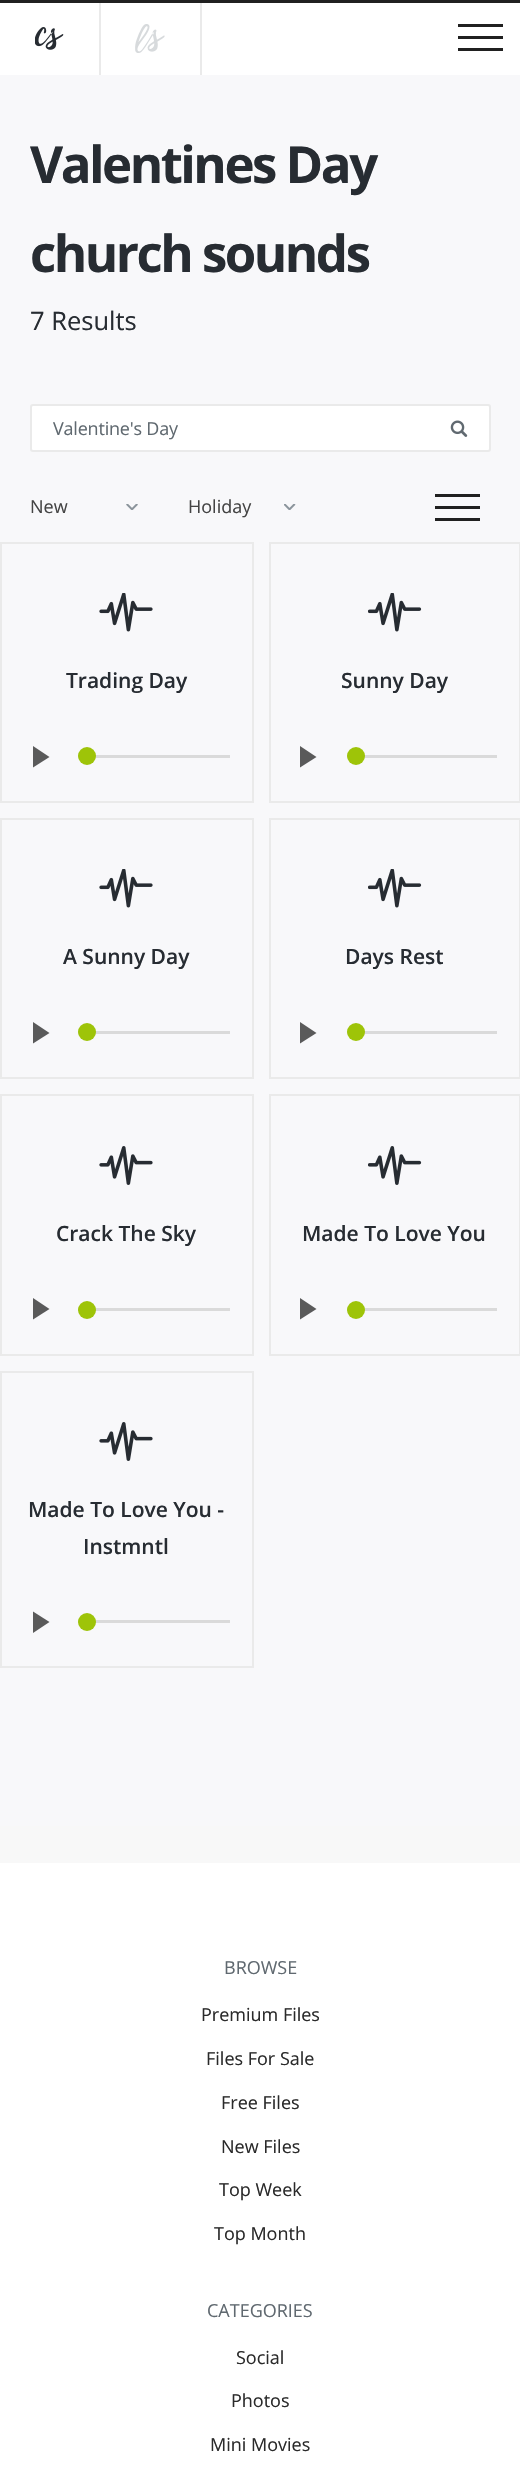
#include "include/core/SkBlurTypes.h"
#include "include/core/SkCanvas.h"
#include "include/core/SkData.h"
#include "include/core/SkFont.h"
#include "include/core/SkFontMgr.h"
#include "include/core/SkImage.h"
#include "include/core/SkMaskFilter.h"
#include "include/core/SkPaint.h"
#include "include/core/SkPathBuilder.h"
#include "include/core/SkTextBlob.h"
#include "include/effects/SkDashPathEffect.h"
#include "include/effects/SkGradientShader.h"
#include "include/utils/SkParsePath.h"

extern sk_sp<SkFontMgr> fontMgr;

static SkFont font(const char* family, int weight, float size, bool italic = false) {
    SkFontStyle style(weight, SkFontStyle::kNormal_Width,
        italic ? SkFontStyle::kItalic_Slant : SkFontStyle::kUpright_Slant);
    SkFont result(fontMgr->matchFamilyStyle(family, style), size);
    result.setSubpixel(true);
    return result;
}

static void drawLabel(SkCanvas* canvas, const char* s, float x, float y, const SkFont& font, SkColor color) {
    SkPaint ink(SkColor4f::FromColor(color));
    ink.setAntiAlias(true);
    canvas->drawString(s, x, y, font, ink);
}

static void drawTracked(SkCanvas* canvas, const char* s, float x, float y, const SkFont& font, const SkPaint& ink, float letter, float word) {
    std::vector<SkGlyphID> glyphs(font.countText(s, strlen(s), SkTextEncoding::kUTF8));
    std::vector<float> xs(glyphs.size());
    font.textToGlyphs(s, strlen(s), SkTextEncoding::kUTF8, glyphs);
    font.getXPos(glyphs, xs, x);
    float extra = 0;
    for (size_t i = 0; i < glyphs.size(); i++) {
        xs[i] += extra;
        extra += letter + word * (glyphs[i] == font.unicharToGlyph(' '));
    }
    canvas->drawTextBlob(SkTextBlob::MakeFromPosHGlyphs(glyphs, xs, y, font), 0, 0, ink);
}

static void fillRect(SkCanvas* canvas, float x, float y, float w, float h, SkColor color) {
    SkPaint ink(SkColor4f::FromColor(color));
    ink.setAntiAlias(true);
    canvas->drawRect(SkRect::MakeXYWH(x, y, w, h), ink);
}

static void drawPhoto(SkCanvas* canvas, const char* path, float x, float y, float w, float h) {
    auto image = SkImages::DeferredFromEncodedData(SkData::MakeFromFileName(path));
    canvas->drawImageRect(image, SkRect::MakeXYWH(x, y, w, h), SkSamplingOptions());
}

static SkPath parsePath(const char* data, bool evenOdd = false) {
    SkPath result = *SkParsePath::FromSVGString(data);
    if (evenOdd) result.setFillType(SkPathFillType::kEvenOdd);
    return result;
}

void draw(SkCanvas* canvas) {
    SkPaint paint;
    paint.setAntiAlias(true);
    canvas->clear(0xFFFFFFFF);
    fillRect(canvas, 0, 1826, 520, 37, 0xFFF8F8F8);
    fillRect(canvas, 0, 0, 520, 3, 0xFF202020);
    fillRect(canvas, 99, 3, 2, 72, 0xFFEAEAEA);
    drawPhoto(canvas, "assets/img1.png", 35, 27, 29, 23);
    fillRect(canvas, 200, 3, 2, 72, 0xFFEAEAEA);
    drawPhoto(canvas, "assets/img2.png", 135, 24, 30, 29);
    fillRect(canvas, 458, 24, 45, 3, 0xFF202020);
    fillRect(canvas, 458, 36, 45, 3, 0xFF202020);
    fillRect(canvas, 458, 48, 45, 3, 0xFF202020);
    fillRect(canvas, 0, 75, 520, 1751, 0xFFF8F8FA);
    SkFont font1 = font("Open Sans", 700, 51);
    paint.setColor(0xFF272C32);
    drawTracked(canvas, "Valentines Day", 30, 183, font1, paint, -2.5f, 0);
    drawTracked(canvas, "church sounds", 30, 272, font1, paint, -2.5f, 0);
    SkFont font2 = font("Open Sans", 400, 25.5f);
    drawLabel(canvas, "7 Results", 30, 330, font2, 0xFF272C32);
    paint.setColor(0xFFFFFFFF);
    canvas->drawRoundRect(SkRect::MakeXYWH(31, 405, 459, 46), 2, 2, paint);
    paint.setStroke(true);
    paint.setStrokeWidth(2);
    paint.setColor(0xFFEAEAEA);
    canvas->drawRoundRect(SkRect::MakeXYWH(31, 405, 459, 46), 2, 2, paint);
    SkFont font3 = font("Open Sans", 400, 18);
    paint.setStroke(false);
    paint.setColor(0xFF606970);
    drawTracked(canvas, "Valentine's Day", 53, 435, font3, paint, -0.2f, 0);
    drawPhoto(canvas, "assets/img3.png", 450, 420, 18, 17);
    drawLabel(canvas, "New", 30, 513, font3, 0xFF444444);
    drawPhoto(canvas, "assets/img4.png", 126, 504, 12, 6);
    drawLabel(canvas, "Holiday", 188, 513, font3, 0xFF444444);
    drawPhoto(canvas, "assets/img5.png", 284, 504, 12, 6);
    fillRect(canvas, 435, 494, 45, 3, 0xFF202020);
    fillRect(canvas, 435, 506, 45, 3, 0xFF202020);
    fillRect(canvas, 435, 518, 45, 3, 0xFF202020);
    paint.setStroke(true);
    paint.setColor(0xFFEAEAEA);
    canvas->drawRect(SkRect::MakeXYWH(1, 543, 252, 259), paint);
    drawPhoto(canvas, "assets/img6.png", 99, 593, 54, 39);
    SkFont font4 = font("Open Sans", 600, 21);
    drawLabel(canvas, "Trading Day", 66, 688, font4, 0xFF272C32);
    paint.setStroke(false);
    paint.setColor(0xFF5A5A5A);
    canvas->drawPath(parsePath("M33 746V767.5L49.5 757Z", true), paint);
    fillRect(canvas, 78, 755, 152, 3, 0xFFDADADA);
    paint.setColor(0xFF9EC408);
    canvas->drawCircle(87, 756, 9, paint);
    paint.setStroke(true);
    paint.setColor(0xFFEAEAEA);
    canvas->drawRect(SkRect::MakeXYWH(270, 543, 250, 259), paint);
    drawPhoto(canvas, "assets/img7.png", 368, 593, 54, 39);
    drawLabel(canvas, "Sunny Day", 341, 688, font4, 0xFF272C32);
    paint.setStroke(false);
    paint.setColor(0xFF5A5A5A);
    canvas->drawPath(parsePath("M300 746V767.5L316.5 757Z", true), paint);
    fillRect(canvas, 347, 755, 150, 3, 0xFFDADADA);
    paint.setColor(0xFF9EC408);
    canvas->drawCircle(356, 756, 9, paint);
    paint.setStroke(true);
    paint.setColor(0xFFEAEAEA);
    canvas->drawRect(SkRect::MakeXYWH(1, 819, 252, 259), paint);
    drawPhoto(canvas, "assets/img6.png", 99, 869, 54, 39);
    drawLabel(canvas, "A Sunny Day", 63, 964, font4, 0xFF272C32);
    paint.setStroke(false);
    paint.setColor(0xFF5A5A5A);
    canvas->drawPath(parsePath("M33 1022V1043.5L49.5 1033Z", true), paint);
    fillRect(canvas, 78, 1031, 152, 3, 0xFFDADADA);
    paint.setColor(0xFF9EC408);
    canvas->drawCircle(87, 1032, 9, paint);
    paint.setStroke(true);
    paint.setColor(0xFFEAEAEA);
    canvas->drawRect(SkRect::MakeXYWH(270, 819, 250, 259), paint);
    drawPhoto(canvas, "assets/img7.png", 368, 869, 54, 39);
    drawLabel(canvas, "Days Rest", 345, 964, font4, 0xFF272C32);
    paint.setStroke(false);
    paint.setColor(0xFF5A5A5A);
    canvas->drawPath(parsePath("M300 1022V1043.5L316.5 1033Z", true), paint);
    fillRect(canvas, 347, 1031, 150, 3, 0xFFDADADA);
    paint.setColor(0xFF9EC408);
    canvas->drawCircle(356, 1032, 9, paint);
    paint.setStroke(true);
    paint.setColor(0xFFEAEAEA);
    canvas->drawRect(SkRect::MakeXYWH(1, 1095, 252, 260), paint);
    drawPhoto(canvas, "assets/img8.png", 99, 1146, 54, 39);
    drawLabel(canvas, "Crack The Sky", 56, 1241, font4, 0xFF272C32);
    paint.setStroke(false);
    paint.setColor(0xFF5A5A5A);
    canvas->drawPath(parsePath("M33 1298V1319.5L49.5 1309Z", true), paint);
    fillRect(canvas, 78, 1308, 152, 3, 0xFFDADADA);
    paint.setColor(0xFF9EC408);
    canvas->drawCircle(87, 1310, 9, paint);
    paint.setStroke(true);
    paint.setColor(0xFFEAEAEA);
    canvas->drawRect(SkRect::MakeXYWH(270, 1095, 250, 260), paint);
    drawPhoto(canvas, "assets/img9.png", 368, 1146, 54, 39);
    drawLabel(canvas, "Made To Love You", 302, 1241, font4, 0xFF272C32);
    paint.setStroke(false);
    paint.setColor(0xFF5A5A5A);
    canvas->drawPath(parsePath("M300 1298V1319.5L316.5 1309Z", true), paint);
    fillRect(canvas, 347, 1308, 150, 3, 0xFFDADADA);
    paint.setColor(0xFF9EC408);
    canvas->drawCircle(356, 1310, 9, paint);
    paint.setStroke(true);
    paint.setColor(0xFFEAEAEA);
    canvas->drawRect(SkRect::MakeXYWH(1, 1372, 252, 295), paint);
    drawPhoto(canvas, "assets/img8.png", 99, 1422, 54, 39);
    drawLabel(canvas, "Made To Love You -", 28, 1517, font4, 0xFF272C32);
    drawLabel(canvas, "Instmntl", 83, 1554, font4, 0xFF272C32);
    paint.setStroke(false);
    paint.setColor(0xFF5A5A5A);
    canvas->drawPath(parsePath("M33 1611.5V1633L49.5 1622Z", true), paint);
    fillRect(canvas, 78, 1620, 152, 3, 0xFFDADADA);
    paint.setColor(0xFF9EC408);
    canvas->drawCircle(87, 1622, 9, paint);
    drawLabel(canvas, "BROWSE", 224, 1974, font3, 0xFF606970);
    drawLabel(canvas, "Premium Files", 201, 2021, font3, 0xFF2A2A2A);
    drawLabel(canvas, "Files For Sale", 206, 2065, font3, 0xFF2A2A2A);
    drawLabel(canvas, "Free Files", 221, 2109, font3, 0xFF2A2A2A);
    drawLabel(canvas, "New Files", 221, 2153, font3, 0xFF2A2A2A);
    drawLabel(canvas, "Top Week", 219, 2196, font3, 0xFF2A2A2A);
    drawLabel(canvas, "Top Month", 214, 2240, font3, 0xFF2A2A2A);
    drawLabel(canvas, "CATEGORIES", 207, 2317, font3, 0xFF606970);
    drawLabel(canvas, "Social", 236, 2364, font3, 0xFF2A2A2A);
    drawLabel(canvas, "Photos", 231, 2407, font3, 0xFF2A2A2A);
    drawLabel(canvas, "Mini Movies", 210, 2451, font3, 0xFF2A2A2A);
}
